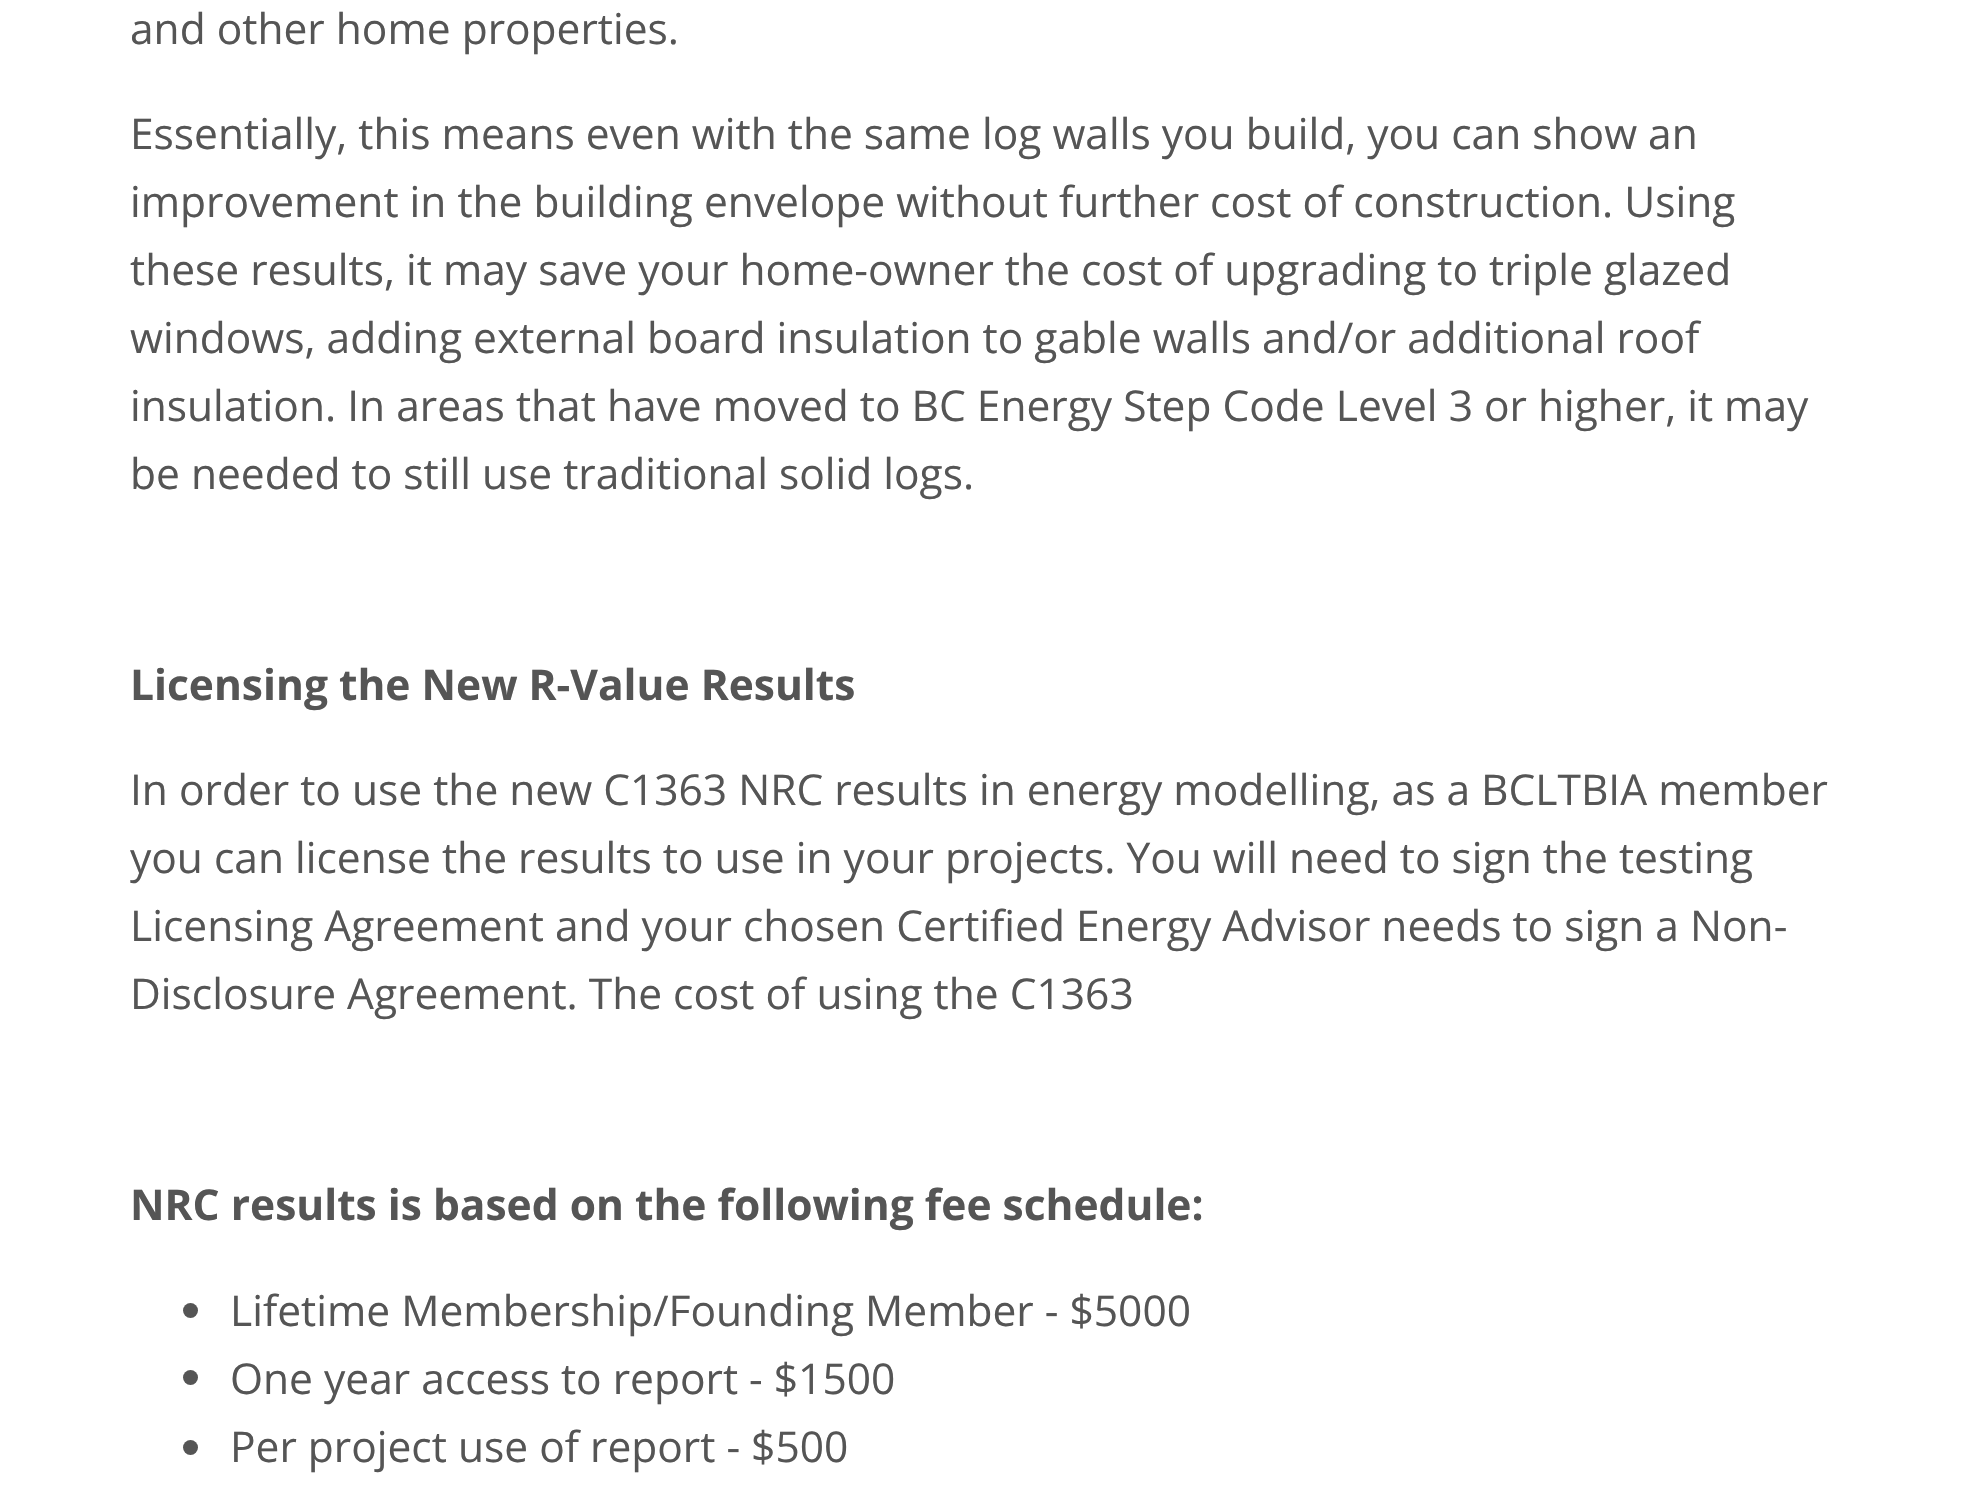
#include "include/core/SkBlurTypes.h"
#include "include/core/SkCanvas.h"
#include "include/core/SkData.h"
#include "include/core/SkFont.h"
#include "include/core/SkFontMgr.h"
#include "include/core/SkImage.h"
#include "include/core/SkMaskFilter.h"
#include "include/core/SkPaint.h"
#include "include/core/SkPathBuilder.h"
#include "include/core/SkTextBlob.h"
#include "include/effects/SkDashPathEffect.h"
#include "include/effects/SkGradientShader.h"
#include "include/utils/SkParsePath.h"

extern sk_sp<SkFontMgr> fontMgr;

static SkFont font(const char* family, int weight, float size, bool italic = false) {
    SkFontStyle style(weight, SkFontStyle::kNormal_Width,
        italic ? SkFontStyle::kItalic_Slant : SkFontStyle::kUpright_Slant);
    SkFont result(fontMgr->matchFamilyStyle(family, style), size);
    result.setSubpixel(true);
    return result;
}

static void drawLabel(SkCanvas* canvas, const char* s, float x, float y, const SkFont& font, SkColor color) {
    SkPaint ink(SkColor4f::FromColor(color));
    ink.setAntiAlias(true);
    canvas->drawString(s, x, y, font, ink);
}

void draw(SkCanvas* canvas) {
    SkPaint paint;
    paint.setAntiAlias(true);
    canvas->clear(0xFFFFFFFF);
    SkFont font1 = font("Open Sans", 400, 42.5f);
    drawLabel(canvas, "and other home properties.", 130, 44, font1, 0xFF555555);
    drawLabel(canvas, "Essentially, this means even with the same log walls you build, you can show an", 130, 149, font1, 0xFF555555);
    drawLabel(canvas, "improvement in the building envelope without further cost of construction. Using", 130, 217, font1, 0xFF555555);
    drawLabel(canvas, "these results, it may save your home-owner the cost of upgrading to triple glazed", 130, 285, font1, 0xFF555555);
    drawLabel(canvas, "windows, adding external board insulation to gable walls and/or additional roof", 130, 353, font1, 0xFF555555);
    drawLabel(canvas, "insulation. In areas that have moved to BC Energy Step Code Level 3 or higher, it may", 130, 421, font1, 0xFF555555);
    drawLabel(canvas, "be needed to still use traditional solid logs.", 130, 489, font1, 0xFF555555);
    SkFont font2 = font("Open Sans", 700, 42.5f);
    drawLabel(canvas, "Licensing the New R-Value Results", 130, 700, font2, 0xFF555555);
    drawLabel(canvas, "In order to use the new C1363 NRC results in energy modelling, as a BCLTBIA member", 130, 805, font1, 0xFF555555);
    drawLabel(canvas, "you can license the results to use in your projects. You will need to sign the testing", 130, 873, font1, 0xFF555555);
    drawLabel(canvas, "Licensing Agreement and your chosen Certified Energy Advisor needs to sign a Non-", 130, 941, font1, 0xFF555555);
    drawLabel(canvas, "Disclosure Agreement. The cost of using the C1363", 130, 1009, font1, 0xFF555555);
    drawLabel(canvas, "NRC results is based on the following fee schedule:", 130, 1220, font2, 0xFF555555);
    paint.setColor(0xFF555555);
    canvas->drawCircle(190.5f, 1310.5f, 7.5f, paint);
    drawLabel(canvas, "Lifetime Membership/Founding Member - $5000", 230, 1326, font1, 0xFF555555);
    canvas->drawCircle(190.5f, 1377.5f, 7.5f, paint);
    drawLabel(canvas, "One year access to report - $1500", 230, 1394, font1, 0xFF555555);
    canvas->drawCircle(190.5f, 1447.5f, 7.5f, paint);
    drawLabel(canvas, "Per project use of report - $500", 230, 1462, font1, 0xFF555555);
}
